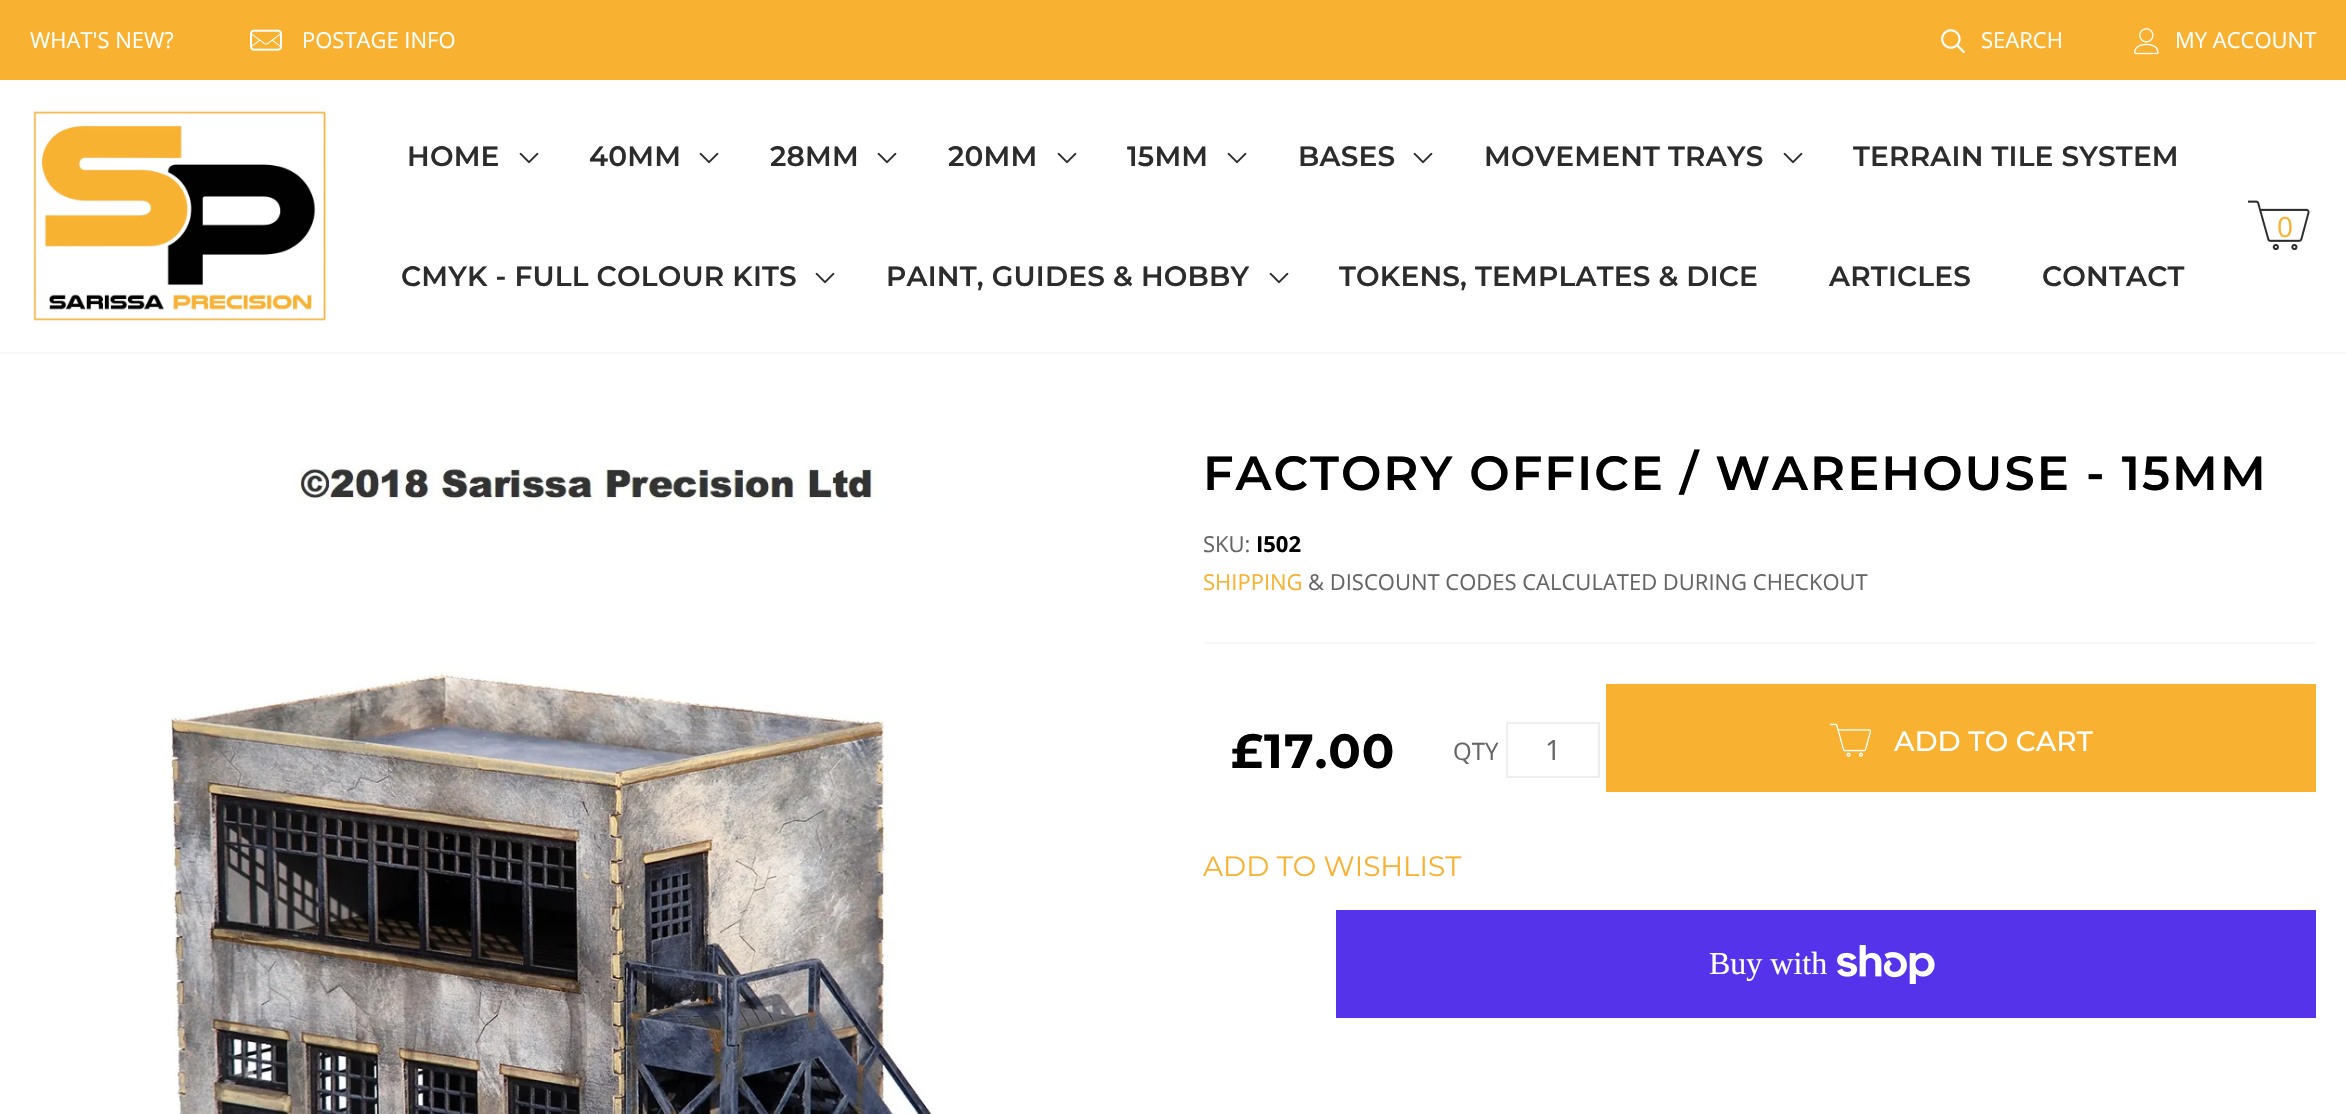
#include "include/core/SkBlurTypes.h"
#include "include/core/SkCanvas.h"
#include "include/core/SkData.h"
#include "include/core/SkFont.h"
#include "include/core/SkFontMgr.h"
#include "include/core/SkImage.h"
#include "include/core/SkMaskFilter.h"
#include "include/core/SkPaint.h"
#include "include/core/SkPathBuilder.h"
#include "include/core/SkTextBlob.h"
#include "include/effects/SkDashPathEffect.h"
#include "include/effects/SkGradientShader.h"
#include "include/utils/SkParsePath.h"

extern sk_sp<SkFontMgr> fontMgr;

static SkFont font(const char* family, int weight, float size, bool italic = false) {
    SkFontStyle style(weight, SkFontStyle::kNormal_Width,
        italic ? SkFontStyle::kItalic_Slant : SkFontStyle::kUpright_Slant);
    SkFont result(fontMgr->matchFamilyStyle(family, style), size);
    result.setSubpixel(true);
    return result;
}

static void drawLabel(SkCanvas* canvas, const char* s, float x, float y, const SkFont& font, SkColor color) {
    SkPaint ink(SkColor4f::FromColor(color));
    ink.setAntiAlias(true);
    canvas->drawString(s, x, y, font, ink);
}

static void drawTracked(SkCanvas* canvas, const char* s, float x, float y, const SkFont& font, const SkPaint& ink, float letter, float word) {
    std::vector<SkGlyphID> glyphs(font.countText(s, strlen(s), SkTextEncoding::kUTF8));
    std::vector<float> xs(glyphs.size());
    font.textToGlyphs(s, strlen(s), SkTextEncoding::kUTF8, glyphs);
    font.getXPos(glyphs, xs, x);
    float extra = 0;
    for (size_t i = 0; i < glyphs.size(); i++) {
        xs[i] += extra;
        extra += letter + word * (glyphs[i] == font.unicharToGlyph(' '));
    }
    canvas->drawTextBlob(SkTextBlob::MakeFromPosHGlyphs(glyphs, xs, y, font), 0, 0, ink);
}

static void fillRect(SkCanvas* canvas, float x, float y, float w, float h, SkColor color) {
    SkPaint ink(SkColor4f::FromColor(color));
    ink.setAntiAlias(true);
    canvas->drawRect(SkRect::MakeXYWH(x, y, w, h), ink);
}

static void drawPhoto(SkCanvas* canvas, const char* path, float x, float y, float w, float h) {
    auto image = SkImages::DeferredFromEncodedData(SkData::MakeFromFileName(path));
    canvas->drawImageRect(image, SkRect::MakeXYWH(x, y, w, h), SkSamplingOptions());
}

void draw(SkCanvas* canvas) {
    SkPaint paint;
    paint.setAntiAlias(true);
    canvas->clear(0xFFFFFFFF);
    fillRect(canvas, 0, 352, 2346, 2, 0xFFF7F7F7);
    fillRect(canvas, 0, 0, 2346, 80, 0xFFF8B131);
    SkFont font1 = font("Open Sans", 400, 22);
    drawLabel(canvas, "WHAT'S NEW?", 30, 48, font1, 0xFFFFFFFF);
    drawPhoto(canvas, "assets/img1.png", 250, 29, 32, 22);
    drawLabel(canvas, "POSTAGE INFO", 302, 48, font1, 0xFFFFFFFF);
    drawPhoto(canvas, "assets/img2.png", 1941, 29, 24, 25);
    drawLabel(canvas, "SEARCH", 1981, 48, font1, 0xFFFFFFFF);
    drawPhoto(canvas, "assets/img3.png", 2134, 28, 25, 27);
    drawLabel(canvas, "MY ACCOUNT", 2175, 48, font1, 0xFFFFFFFF);
    drawPhoto(canvas, "assets/img4.png", 33, 111, 293, 210);
    SkFont font2 = font("Montserrat", 600, 28);
    paint.setColor(0xFF2D2C2C);
    drawTracked(canvas, "HOME", 407, 166, font2, paint, 0.2f, 0);
    drawPhoto(canvas, "assets/img5.png", 519, 152, 20, 12);
    drawTracked(canvas, "40MM", 589, 166, font2, paint, 0.2f, 0);
    drawPhoto(canvas, "assets/img5.png", 699, 152, 20, 12);
    drawTracked(canvas, "28MM", 770, 166, font2, paint, 0.2f, 0);
    drawPhoto(canvas, "assets/img5.png", 877, 152, 20, 12);
    drawTracked(canvas, "20MM", 948, 166, font2, paint, 0.2f, 0);
    drawPhoto(canvas, "assets/img5.png", 1057, 152, 20, 12);
    drawTracked(canvas, "15MM", 1127, 166, font2, paint, 0.2f, 0);
    drawPhoto(canvas, "assets/img5.png", 1227, 152, 20, 12);
    drawTracked(canvas, "BASES", 1298, 166, font2, paint, 0.2f, 0);
    drawPhoto(canvas, "assets/img5.png", 1413, 152, 20, 12);
    drawTracked(canvas, "MOVEMENT TRAYS", 1484, 166, font2, paint, 0.2f, 0);
    drawPhoto(canvas, "assets/img5.png", 1783, 152, 20, 12);
    drawTracked(canvas, "TERRAIN TILE SYSTEM", 1853, 166, font2, paint, 0.2f, 0);
    drawTracked(canvas, "CMYK - FULL COLOUR KITS", 401, 286, font2, paint, 0.2f, 0);
    drawPhoto(canvas, "assets/img5.png", 815, 272, 20, 12);
    drawTracked(canvas, "PAINT, GUIDES & HOBBY", 886, 286, font2, paint, 0.2f, 0);
    drawPhoto(canvas, "assets/img5.png", 1269, 272, 20, 12);
    drawTracked(canvas, "TOKENS, TEMPLATES & DICE", 1339, 286, font2, paint, 0.2f, 0);
    drawTracked(canvas, "ARTICLES", 1829, 286, font2, paint, 0.2f, 0);
    drawTracked(canvas, "CONTACT", 2042, 286, font2, paint, 0.2f, 0);
    drawPhoto(canvas, "assets/img6.png", 2248, 200, 62, 51);
    SkFont font3 = font("Open Sans", 400, 28);
    drawLabel(canvas, "0", 2277, 237, font3, 0xFFF8B131);
    drawPhoto(canvas, "assets/img7.png", 170, 467, 763, 647);
    SkFont font4 = font("Montserrat", 600, 48);
    paint.setColor(0xFF000000);
    drawTracked(canvas, "FACTORY OFFICE / WAREHOUSE - 15MM", 1203, 490, font4, paint, 2, 0);
    drawLabel(canvas, "SKU:", 1203, 552, font1, 0xFF656565);
    SkFont font5 = font("Open Sans", 700, 22);
    drawLabel(canvas, "I502", 1256, 552, font5, 0xFF000000);
    drawLabel(canvas, "SHIPPING", 1203, 590, font1, 0xFFF8B131);
    drawLabel(canvas, "& DISCOUNT CODES CALCULATED DURING CHECKOUT", 1308, 590, font1, 0xFF656565);
    fillRect(canvas, 1204, 642, 1112, 2, 0xFFF7F7F7);
    SkFont font6 = font("Montserrat", 700, 48);
    drawTracked(canvas, "£17.00", 1231, 768, font6, paint, 1, 0);
    SkFont font7 = font("Open Sans", 400, 24);
    drawLabel(canvas, "QTY", 1453, 760, font7, 0xFF656565);
    paint.setStroke(true);
    paint.setStrokeWidth(2);
    paint.setColor(0xFFEEEEEE);
    canvas->drawRect(SkRect::MakeXYWH(1507, 723, 92, 54), paint);
    drawLabel(canvas, "1", 1545, 760, font3, 0xFF656565);
    fillRect(canvas, 1606, 684, 710, 108, 0xFFF8B131);
    drawPhoto(canvas, "assets/img8.png", 1830, 723, 41, 34);
    SkFont font8 = font("Montserrat", 500, 28);
    drawLabel(canvas, "ADD TO CART", 1894, 751, font8, 0xFFFFFFFF);
    SkFont font9 = font("Montserrat", 400, 28);
    drawLabel(canvas, "ADD TO WISHLIST", 1203, 876, font9, 0xFFF8B131);
    fillRect(canvas, 1336, 910, 980, 108, 0xFF5433EB);
    SkFont font10 = font("Liberation Serif", 400, 32);
    drawLabel(canvas, "Buy with", 1709, 974, font10, 0xFFFFFFFF);
    drawPhoto(canvas, "assets/img9.png", 1837, 945, 98, 39);
}
